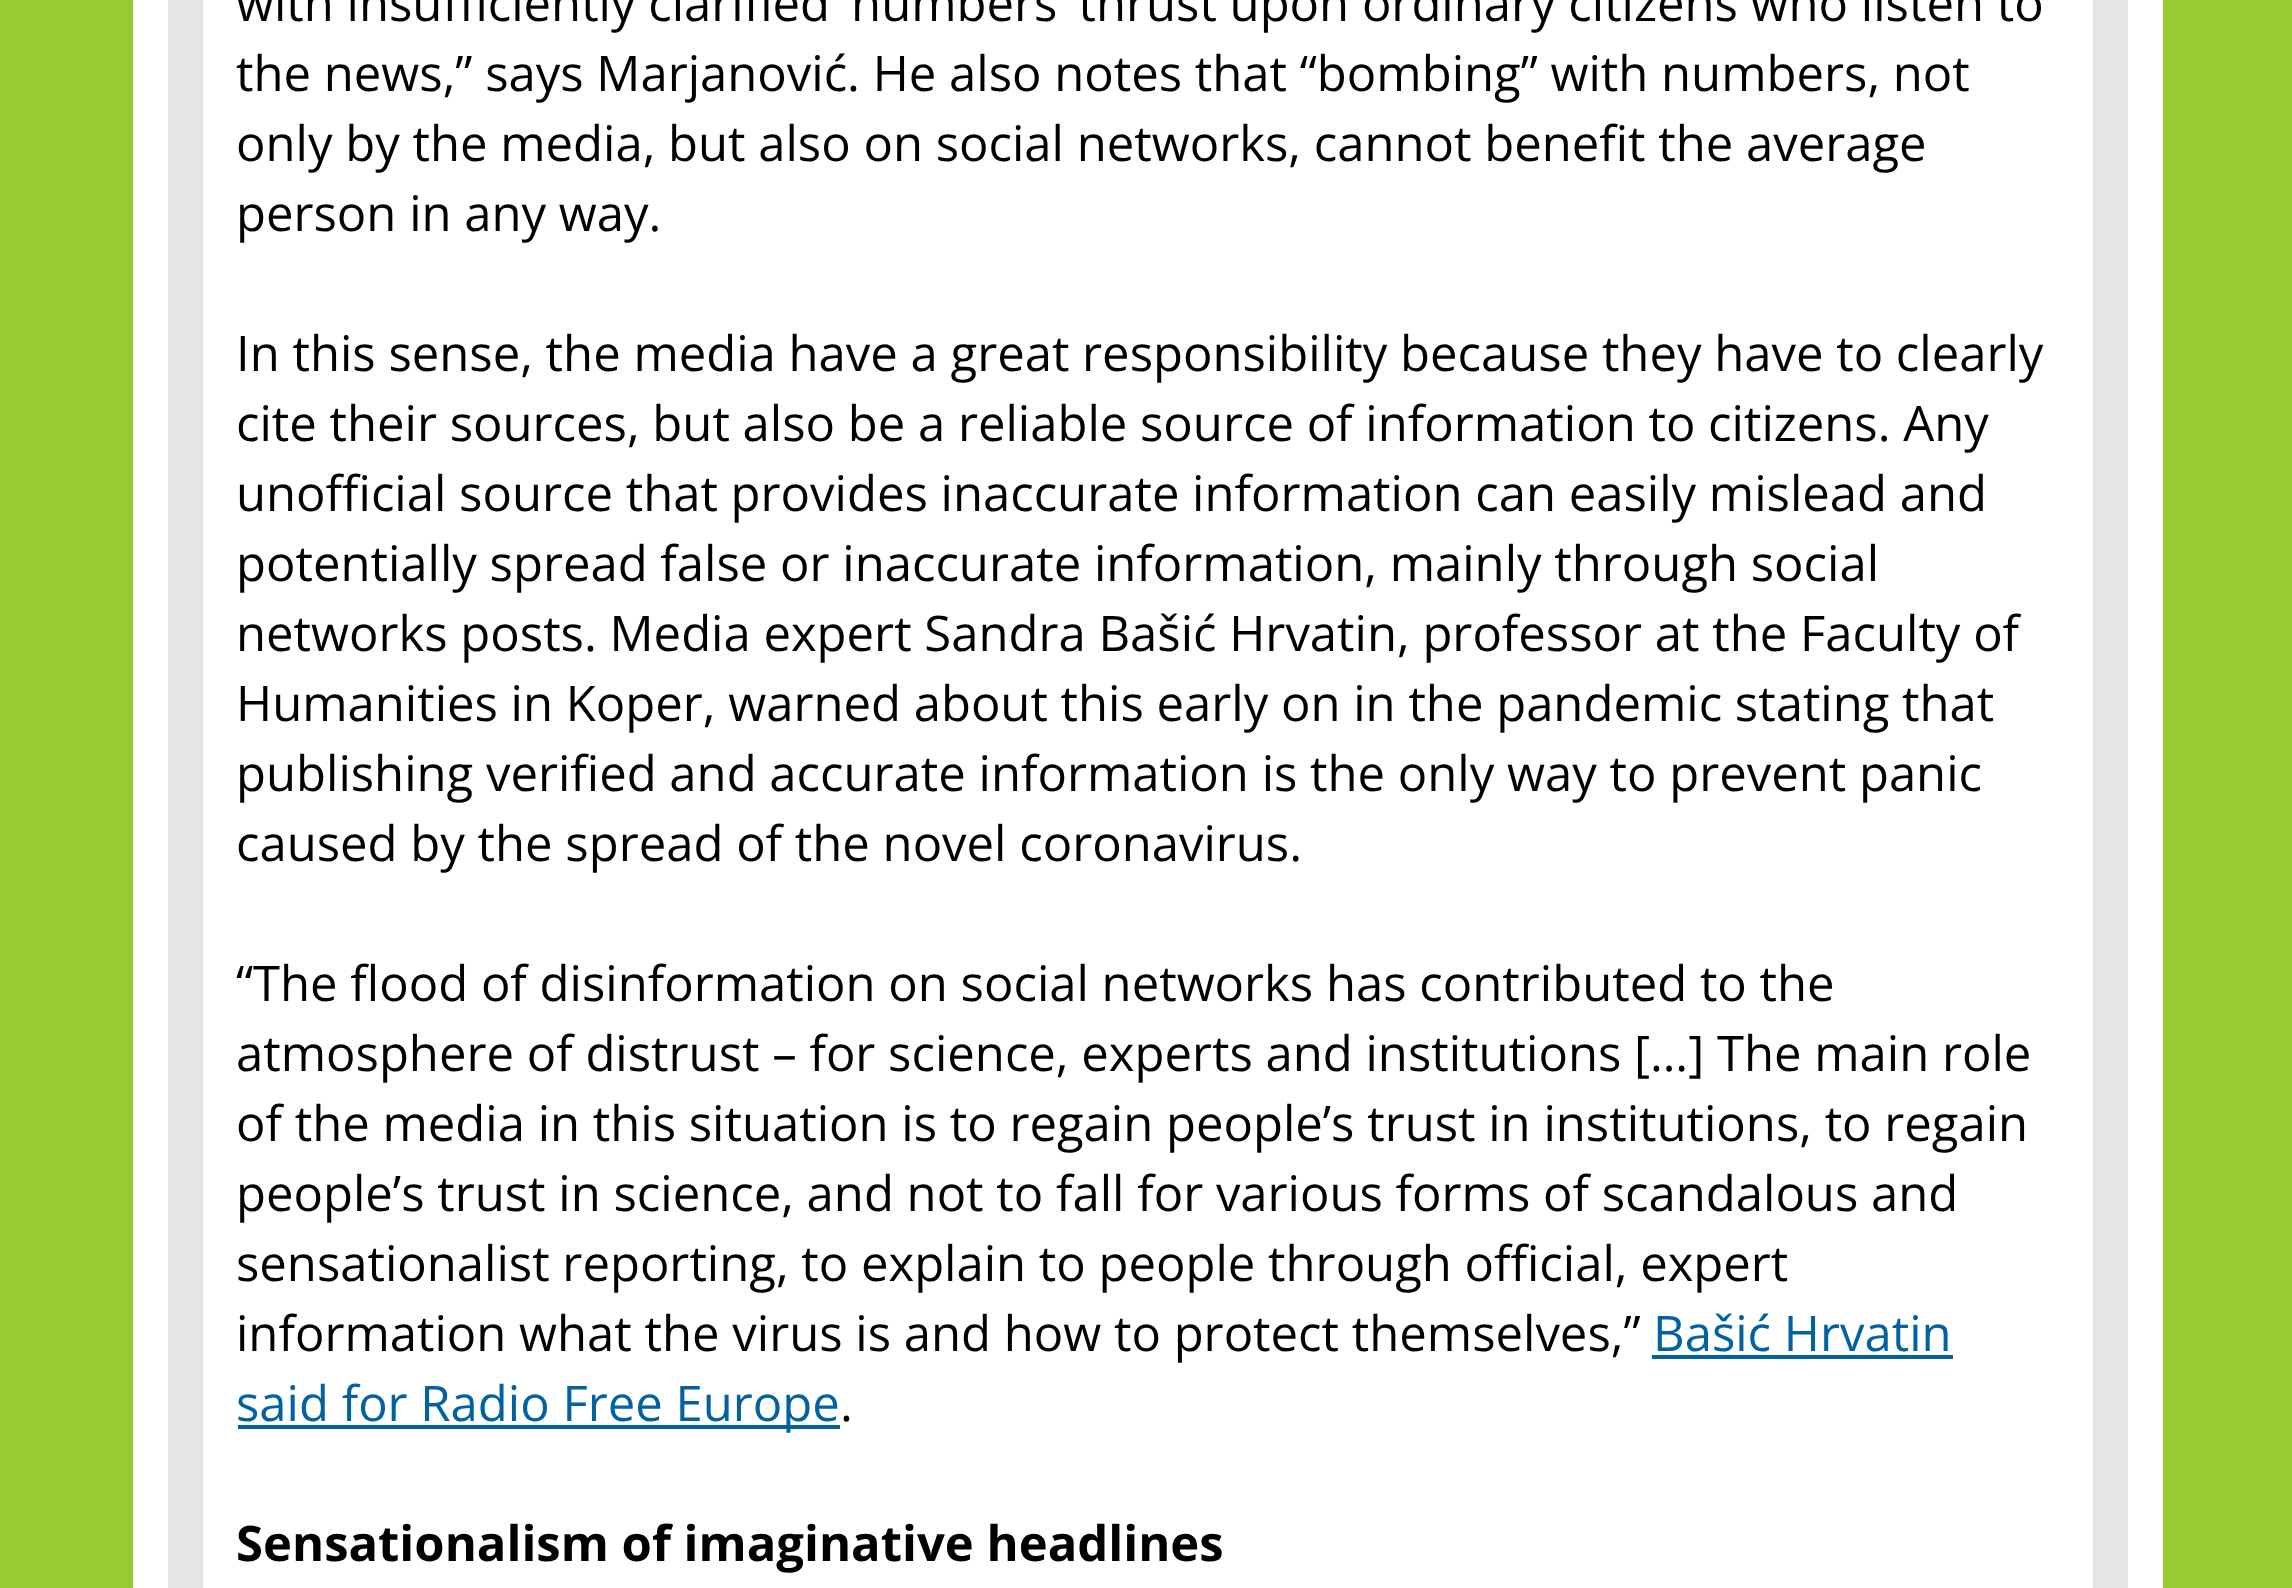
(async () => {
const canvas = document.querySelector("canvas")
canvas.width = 2292
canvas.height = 1588
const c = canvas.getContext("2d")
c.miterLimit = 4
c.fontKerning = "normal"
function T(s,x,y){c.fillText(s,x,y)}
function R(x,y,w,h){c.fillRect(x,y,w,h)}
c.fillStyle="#9c3"
R(0,0,2292,1588)
c.fillStyle="#fff"
R(133,0,2030,1588)
c.strokeStyle="#e5e5e5"
c.lineWidth=35
c.strokeRect(185.5,-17.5,1925,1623)
c.font="49px Open Sans"
c.fillStyle="#000"
T("with insufficiently clarified ‘numbers’ thrust upon ordinary citizens who listen to",236,21)
T("the news,” says Marjanović. He also notes that “bombing” with numbers, not",236,91)
T("only by the media, but also on social networks, cannot benefit the average",236,161)
T("person in any way.",236,231)
T("In this sense, the media have a great responsibility because they have to clearly",236,371)
T("cite their sources, but also be a reliable source of information to citizens. Any",236,441)
T("unofficial source that provides inaccurate information can easily mislead and",236,511)
T("potentially spread false or inaccurate information, mainly through social",236,581)
T("networks posts. Media expert Sandra Bašić Hrvatin, professor at the Faculty of",236,651)
T("Humanities in Koper, warned about this early on in the pandemic stating that",236,721)
T("publishing verified and accurate information is the only way to prevent panic",236,791)
T("caused by the spread of the novel coronavirus.",236,861)
T("“The flood of disinformation on social networks has contributed to the",236,1001)
T("atmosphere of distrust – for science, experts and institutions […] The main role",236,1071)
T("of the media in this situation is to regain people’s trust in institutions, to regain",236,1141)
T("people’s trust in science, and not to fall for various forms of scandalous and",236,1211)
T("sensationalist reporting, to explain to people through official, expert",236,1281)
T("information what the virus is and how to protect themselves,”",236,1351)
c.fillStyle="#0062a0"
T("Bašić Hrvatin",1653,1351)
R(1652,1355,301,4)
R(238,1425,602,4)
T("said for Radio Free Europe",236,1421)
c.fillStyle="#000"
T(".",840,1421)
c.font="bold 49px Open Sans"
T("Sensationalism of imaginative headlines",236,1561)
})()
